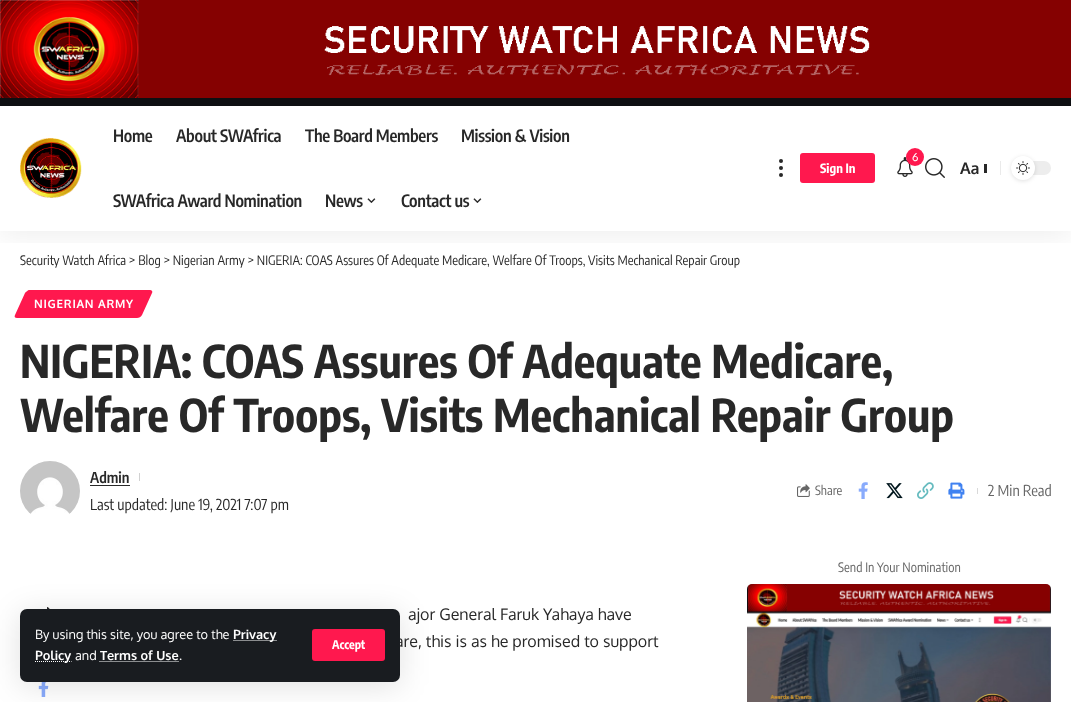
(async () => {
const canvas = document.querySelector("canvas")
canvas.width = 1071
canvas.height = 702
const c = canvas.getContext("2d")
c.miterLimit = 4
c.fontKerning = "normal"
function T(s,x,y){c.fillText(s,x,y)}
function R(x,y,w,h){c.fillRect(x,y,w,h)}
function Q(x,y,w,h,r){c.beginPath();c.roundRect(x,y,w,h,r);c.fill()}
async function I(src,x,y,w,h){const img=new Image();img.src=src;await img.decode();c.drawImage(img,x,y,w,h)}
let path
c.fillStyle="#fff"
R(0,0,1071,702)
c.fillStyle="#0e0f12"
R(0,98,1071,8)
await I("1.png",0,0,1071,98)
c.save()
c.beginPath()
c.rect(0,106,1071,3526)
c.clip()
c.beginPath()
c.rect(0,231,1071,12)
c.clip()
c.fillStyle="#00000012"
c.filter="blur(15px)"
c.beginPath()
c.rect(0,110,1071,125)
c.fill()
c.filter="none"
c.restore()
await I("2.png",20,138,62,60)
c.letterSpacing="-0.3px"
c.font="600 17px Encode Sans Condensed"
c.fillStyle="#282828"
T("Home",113,142)
T("About SWAfrica",176,142)
T("The Board Members",305,142)
T("Mission & Vision",461,142)
T("SWAfrica Award Nomination",113,207)
T("News",325,207)
await I("3.png",367,198,9,5)
T("Contact us",401,207)
await I("3.png",473,198,9,5)
c.beginPath()
c.arc(781,161,2,0,7)
c.fill()
c.beginPath()
c.arc(781,168,2,0,7)
c.fill()
c.beginPath()
c.arc(781,175,2,0,7)
c.fill()
c.fillStyle="#ff184e"
Q(800,153,75,30,3)
c.letterSpacing="0px"
c.font="bold 12.75px Encode Sans Condensed"
c.fillStyle="#fff"
T("Sign In",820,173)
await I("4.png",897,157,16,20)
c.fillStyle="#ff184e"
c.beginPath()
c.arc(915,157,9,0,7)
c.fill()
c.font="11px Oxygen"
c.fillStyle="#fff"
T("6",912,161)
await I("5.png",925,158,20,20)
c.font="bold 16px Oxygen"
c.fillStyle="#282828"
T("Aa",960,174)
R(984,164,3,9)
c.fillStyle="#eaeaea"
R(1000,161,1,14)
c.fillStyle="#ededed"
Q(1011,161,40,14,7)
c.fillStyle="#0000001f"
c.filter="blur(2px)"
c.beginPath()
c.roundRect(1011,157,24,24,12)
c.fill()
c.filter="none"
c.fillStyle="#fff"
c.beginPath()
c.arc(1023,168,12,0,7)
c.fill()
await I("6.png",1016,161,14,14)
await I("14.png",47,607,3,2)
await I("15.png",38,682,11,15)
c.fillStyle="#0000001f"
c.filter="blur(15px)"
c.beginPath()
c.roundRect(20,613,380,73,7)
c.fill()
c.filter="none"
c.font="16px Oxygen"
c.fillStyle="#282828"
T("are, this is as he promised to support",395,647)
c.fillStyle="#191c20"
Q(20,609,380,73,7)
c.font="12.75px Oxygen"
c.fillStyle="#fff"
T("By using this site, you agree to the",35,639)
path = new Path2D("M233.5 640.5h43.5")
c.strokeStyle="#fff"
c.setLineDash([1,1])
c.stroke(path)
c.font="bold 12.75px Oxygen"
T("Privacy",233,639)
path = new Path2D("M35 661.5h36.5")
c.stroke(path)
T("Policy",35,660)
c.font="12.75px Oxygen"
T("and",75,660)
c.font="bold 12.75px Oxygen"
T("Terms of Use",100,660)
path = new Path2D("M99.5 661.5h79")
c.stroke(path)
c.font="12.75px Oxygen"
T(".",179,660)
c.fillStyle="#ff184e"
Q(312,629,73,32,3)
c.font="bold 12px Encode Sans Condensed"
c.fillStyle="#fff"
T("Accept",332,649)
c.font="13px Encode Sans Condensed"
c.fillStyle="#282828"
T("Security Watch Africa > Blog > Nigerian Army > NIGERIA: COAS Assures Of Adequate Medicare, Welfare Of Troops, Visits Mechanical Repair Group",20,265)
c.fillStyle="#ff184e"
path = new Path2D("M29 290h121c2 0 3 2 2 3l-10 22c-1 2-3 3-5 3h-120c-2 0-3-1-2-3l10-22c1-1 3-3 4-3z")
c.fill(path)
c.letterSpacing="0.75px"
c.font="bold 11.5px Oxygen"
c.fillStyle="#fff"
T("NIGERIAN ARMY",34,308)
c.letterSpacing="0px"
c.font="bold 45px Encode Sans Condensed"
c.fillStyle="#282828"
T("NIGERIA: COAS Assures Of Adequate Medicare,",20,378)
T("Welfare Of Troops, Visits Mechanical Repair Group",20,432)
await I("7.png",20,461,60,53)
c.font="600 15px Encode Sans Condensed"
T("Admin",90,483)
R(90,485,40,1)
c.fillStyle="#d1d1d1"
R(139,473,1,8)
c.font="15px Encode Sans Condensed"
c.fillStyle="#282828"
T("Last updated: June 19, 2021 7:07 pm",90,510)
await I("8.png",797,484,13,13)
c.font="12.75px Encode Sans Condensed"
c.fillStyle="#666"
T("Share",815,495)
await I("9.png",858,482,10,17)
await I("10.png",886,483,17,16)
await I("11.png",917,482,17,17)
await I("12.png",948,482,17,17)
c.fillStyle="#d9d9d9"
R(977,488,1,6)
c.font="15px Encode Sans Condensed"
c.fillStyle="#666"
T("2 Min Read",988,496)
c.font="13px Encode Sans Condensed"
T("Send In Your Nomination",838,572)
await I("13.png",747,584,304,118)
c.font="16px Oxygen"
c.fillStyle="#282828"
T("ajor General Faruk Yahaya have",408,620)
})()
